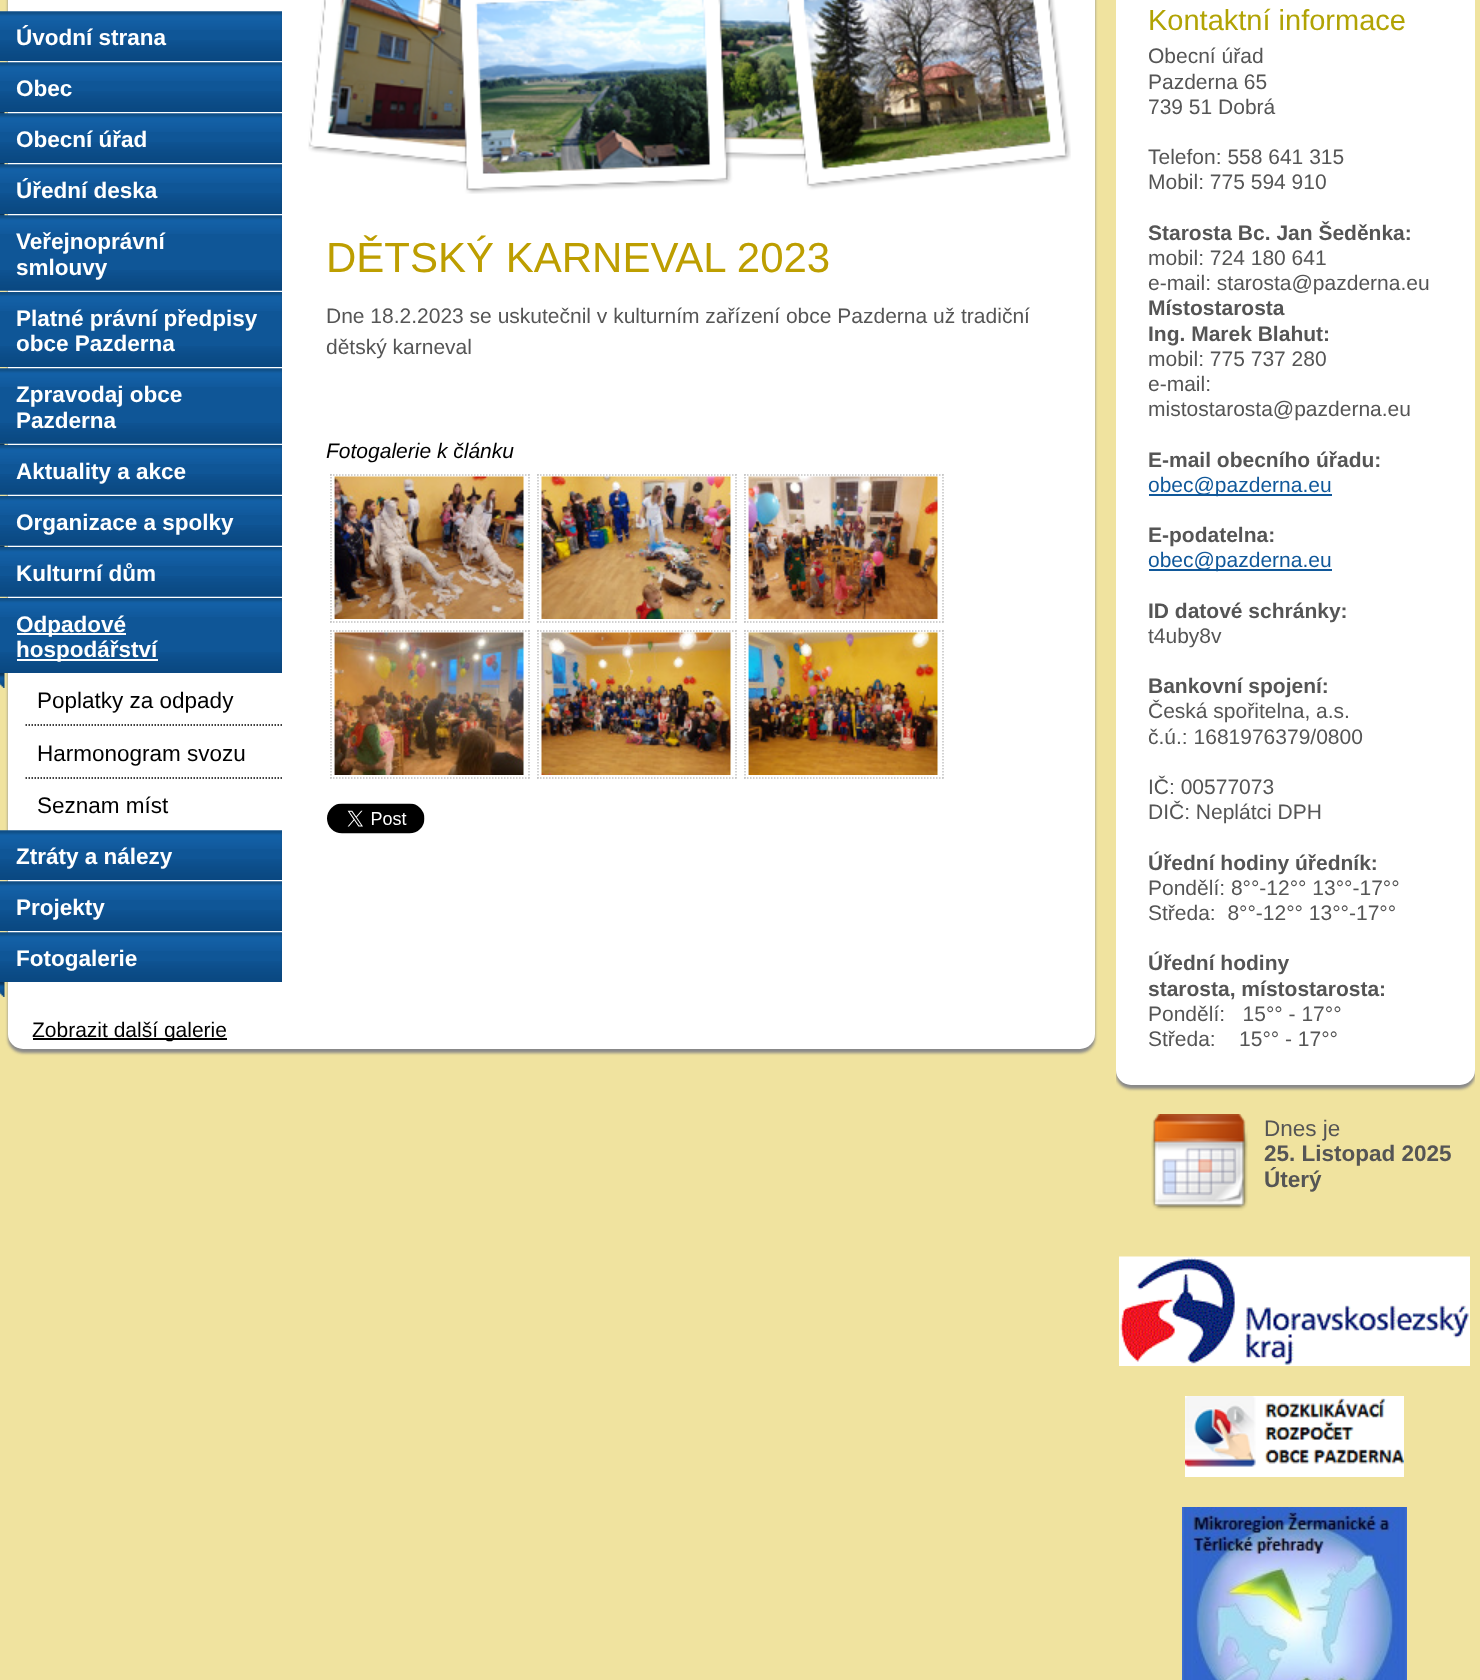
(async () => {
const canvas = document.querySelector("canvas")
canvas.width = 1480
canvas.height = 1680
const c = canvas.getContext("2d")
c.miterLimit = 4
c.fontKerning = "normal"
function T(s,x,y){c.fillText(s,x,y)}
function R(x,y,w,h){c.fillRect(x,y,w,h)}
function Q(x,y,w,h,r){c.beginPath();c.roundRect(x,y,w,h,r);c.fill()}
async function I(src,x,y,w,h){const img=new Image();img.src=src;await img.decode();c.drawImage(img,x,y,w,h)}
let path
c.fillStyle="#f0e39f"
R(0,0,1480,1680)
c.fillStyle="#888"
c.filter="blur(1.5px)"
c.beginPath()
c.roundRect(8,-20,1087,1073,15)
c.fill()
c.filter="none"
c.fillStyle="#fff"
Q(8,-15,1087,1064,15)
await I("1.png",0,11,282,29)
await I("2.png",0,11,282,19)
await I("3.png",0,40,282,21)
c.font="bold 22.5px Liberation Sans"
T("Úvodní strana",16,45)
await I("1.png",0,62,282,29)
await I("2.png",0,62,282,19)
await I("3.png",0,91,282,21)
T("Obec",16,96)
await I("4.png",0,112,5,2)
await I("5.png",0,113,282,29)
await I("6.png",0,113,282,19)
await I("3.png",0,142,282,21)
T("Obecní úřad",16,147)
await I("4.png",0,163,5,2)
await I("5.png",0,164,282,29)
await I("6.png",0,164,282,19)
await I("3.png",0,193,282,21)
T("Úřední deska",16,198)
await I("4.png",0,214,5,2)
await I("7.png",0,215,282,76)
await I("6.png",0,215,282,19)
T("Veřejnoprávní",16,249)
await I("8.png",0,270,282,21)
T("smlouvy",16,275)
await I("9.png",0,311,282,35)
await I("10.png",0,292,282,19)
T("Platné právní předpisy",16,326)
await I("3.png",0,346,282,21)
T("obce Pazderna",16,351)
await I("11.png",0,368,282,76)
await I("2.png",0,368,282,19)
T("Zpravodaj obce",16,402)
await I("8.png",0,423,282,21)
T("Pazderna",16,428)
await I("12.png",0,443,5,2)
await I("13.png",0,464,282,31)
await I("10.png",0,445,282,19)
await I("8.png",0,474,282,21)
T("Aktuality a akce",16,479)
await I("13.png",0,515,282,31)
await I("10.png",0,496,282,19)
await I("8.png",0,525,282,21)
T("Organizace a spolky",16,530)
await I("12.png",0,545,5,2)
await I("13.png",0,566,282,31)
await I("10.png",0,547,282,19)
await I("8.png",0,576,282,21)
T("Kulturní dům",16,581)
await I("9.png",0,617,282,35)
await I("10.png",0,598,282,19)
R(17,633,109,2)
T("Odpadové",16,632)
await I("3.png",0,652,282,21)
R(17,659,141,2)
T("hospodářství",16,657)
await I("14.png",0,673,5,15)
c.font="22.5px Liberation Sans"
c.fillStyle="#000"
T("Poplatky za odpady",37,708)
path = new Path2D("M25.5 725h256.5")
c.strokeStyle="#000"
c.lineWidth=1.5
c.setLineDash([1.5,1.5])
c.stroke(path)
T("Harmonogram svozu",37,761)
path = new Path2D("M25.5 778h256.5")
c.stroke(path)
T("Seznam míst",37,813)
await I("1.png",0,830,282,29)
await I("2.png",0,830,282,19)
await I("3.png",0,859,282,21)
c.font="bold 22.5px Liberation Sans"
c.fillStyle="#fff"
T("Ztráty a nálezy",16,864)
await I("1.png",0,881,282,29)
await I("2.png",0,881,282,19)
await I("3.png",0,910,282,21)
T("Projekty",16,915)
await I("1.png",0,932,282,29)
await I("2.png",0,932,282,19)
await I("3.png",0,961,282,21)
T("Fotogalerie",16,966)
await I("14.png",0,982,5,15)
c.fillStyle="#000"
R(33,1038,194,2)
c.font="21px Liberation Sans"
T("Zobrazit další galerie",32,1037)
await I("15.png",308,0,763,194)
c.font="42px Liberation Sans"
c.fillStyle="#bd9e00"
T("DĚTSKÝ KARNEVAL 2023",326,272)
c.font="21px Liberation Sans"
c.fillStyle="#555"
T("Dne 18.2.2023 se uskutečnil v kulturním zařízení obce Pazderna už tradiční",326,323)
T("dětský karneval",326,354)
c.font="italic 21px Liberation Sans"
c.fillStyle="#000"
T("Fotogalerie k článku",326,458)
path = new Path2D("M330 475h199.5")
c.strokeStyle="#c2c2c2"
c.stroke(path)
path = new Path2D("M529 474v148.5")
c.stroke(path)
path = new Path2D("M330 622h199.5")
c.stroke(path)
path = new Path2D("M331 474v148.5")
c.stroke(path)
await I("16.png",333,476,192,143)
path = new Path2D("M537 475h199.5")
c.stroke(path)
path = new Path2D("M736 474v148.5")
c.stroke(path)
path = new Path2D("M537 622h199.5")
c.stroke(path)
path = new Path2D("M538 474v148.5")
c.stroke(path)
await I("17.png",540,476,192,143)
path = new Path2D("M744 475h199.5")
c.stroke(path)
path = new Path2D("M943 474v148.5")
c.stroke(path)
path = new Path2D("M744 622h199.5")
c.stroke(path)
path = new Path2D("M745 474v148.5")
c.stroke(path)
await I("18.png",747,476,192,143)
path = new Path2D("M330 631h199.5")
c.stroke(path)
path = new Path2D("M529 630v148.5")
c.stroke(path)
path = new Path2D("M330 778h199.5")
c.stroke(path)
path = new Path2D("M331 630v148.5")
c.stroke(path)
await I("19.png",333,632,192,143)
path = new Path2D("M537 631h199.5")
c.stroke(path)
path = new Path2D("M736 630v148.5")
c.stroke(path)
path = new Path2D("M537 778h199.5")
c.stroke(path)
path = new Path2D("M538 630v148.5")
c.stroke(path)
await I("20.png",540,632,192,143)
path = new Path2D("M744 631h199.5")
c.stroke(path)
path = new Path2D("M943 630v148.5")
c.stroke(path)
path = new Path2D("M744 778h199.5")
c.stroke(path)
path = new Path2D("M745 630v148.5")
c.stroke(path)
await I("21.png",747,632,192,143)
await I("22.png",327,803,98,31)
c.save()
c.beginPath()
c.rect(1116,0,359,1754)
c.clip()
c.fillStyle="#888"
c.filter="blur(1.5px)"
c.beginPath()
c.roundRect(1116,-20,359,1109,15)
c.fill()
c.filter="none"
c.restore()
c.fillStyle="#fff"
Q(1116,-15,359,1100,15)
c.font="29px Liberation Sans"
c.fillStyle="#b1a304"
T("Kontaktní informace",1148,30)
c.font="21px Liberation Sans"
c.fillStyle="#555"
T("Obecní úřad",1148,63)
T("Pazderna 65",1148,89)
T("739 51 Dobrá",1148,114)
T("Telefon: 558 641 315",1148,164)
T("Mobil: 775 594 910",1148,189)
c.font="bold 21px Liberation Sans"
T("Starosta Bc. Jan Šeděnka:",1148,240)
c.font="21px Liberation Sans"
T("mobil: 724 180 641",1148,265)
T("e-mail: starosta@pazderna.eu",1148,290)
c.font="bold 21px Liberation Sans"
T("Místostarosta",1148,315)
T("Ing. Marek Blahut:",1148,341)
c.font="21px Liberation Sans"
T("mobil: 775 737 280",1148,366)
T("e-mail:",1148,391)
T("mistostarosta@pazderna.eu",1148,416)
c.font="bold 21px Liberation Sans"
T("E-mail obecního úřadu:",1148,467)
c.fillStyle="#10589a"
R(1149,494,183,2)
c.font="21px Liberation Sans"
T("obec@pazderna.eu",1148,492)
c.font="bold 21px Liberation Sans"
c.fillStyle="#555"
T("E-podatelna:",1148,542)
c.fillStyle="#10589a"
R(1149,569,183,2)
c.font="21px Liberation Sans"
T("obec@pazderna.eu",1148,567)
c.font="bold 21px Liberation Sans"
c.fillStyle="#555"
T("ID datové schránky:",1148,618)
c.font="21px Liberation Sans"
T("t4uby8v",1148,643)
c.font="bold 21px Liberation Sans"
T("Bankovní spojení:",1148,693)
c.font="21px Liberation Sans"
T("Česká spořitelna, a.s.",1148,718)
T("č.ú.: 1681976379/0800",1148,744)
T("IČ: 00577073",1148,794)
T("DIČ: Neplátci DPH",1148,819)
c.font="bold 21px Liberation Sans"
T("Úřední hodiny úředník:",1148,870)
c.font="21px Liberation Sans"
T("Pondělí: 8°°-12°° 13°°-17°°",1148,895)
T("Středa:  8°°-12°° 13°°-17°°",1148,920)
c.font="bold 21px Liberation Sans"
T("Úřední hodiny",1148,970)
T("starosta, místostarosta:",1148,996)
c.font="21px Liberation Sans"
T("Pondělí:   15°° - 17°°",1148,1021)
T("Středa:    15°° - 17°°",1148,1046)
await I("23.png",1151,1114,97,97)
c.font="22.5px Liberation Sans"
T("Dnes je",1264,1136)
c.font="bold 22.5px Liberation Sans"
T("25. Listopad 2025",1264,1161)
T("Úterý",1264,1187)
await I("24.png",1119,1256,351,110)
await I("25.png",1185,1396,219,81)
await I("26.png",1182,1507,225,173)
})()
